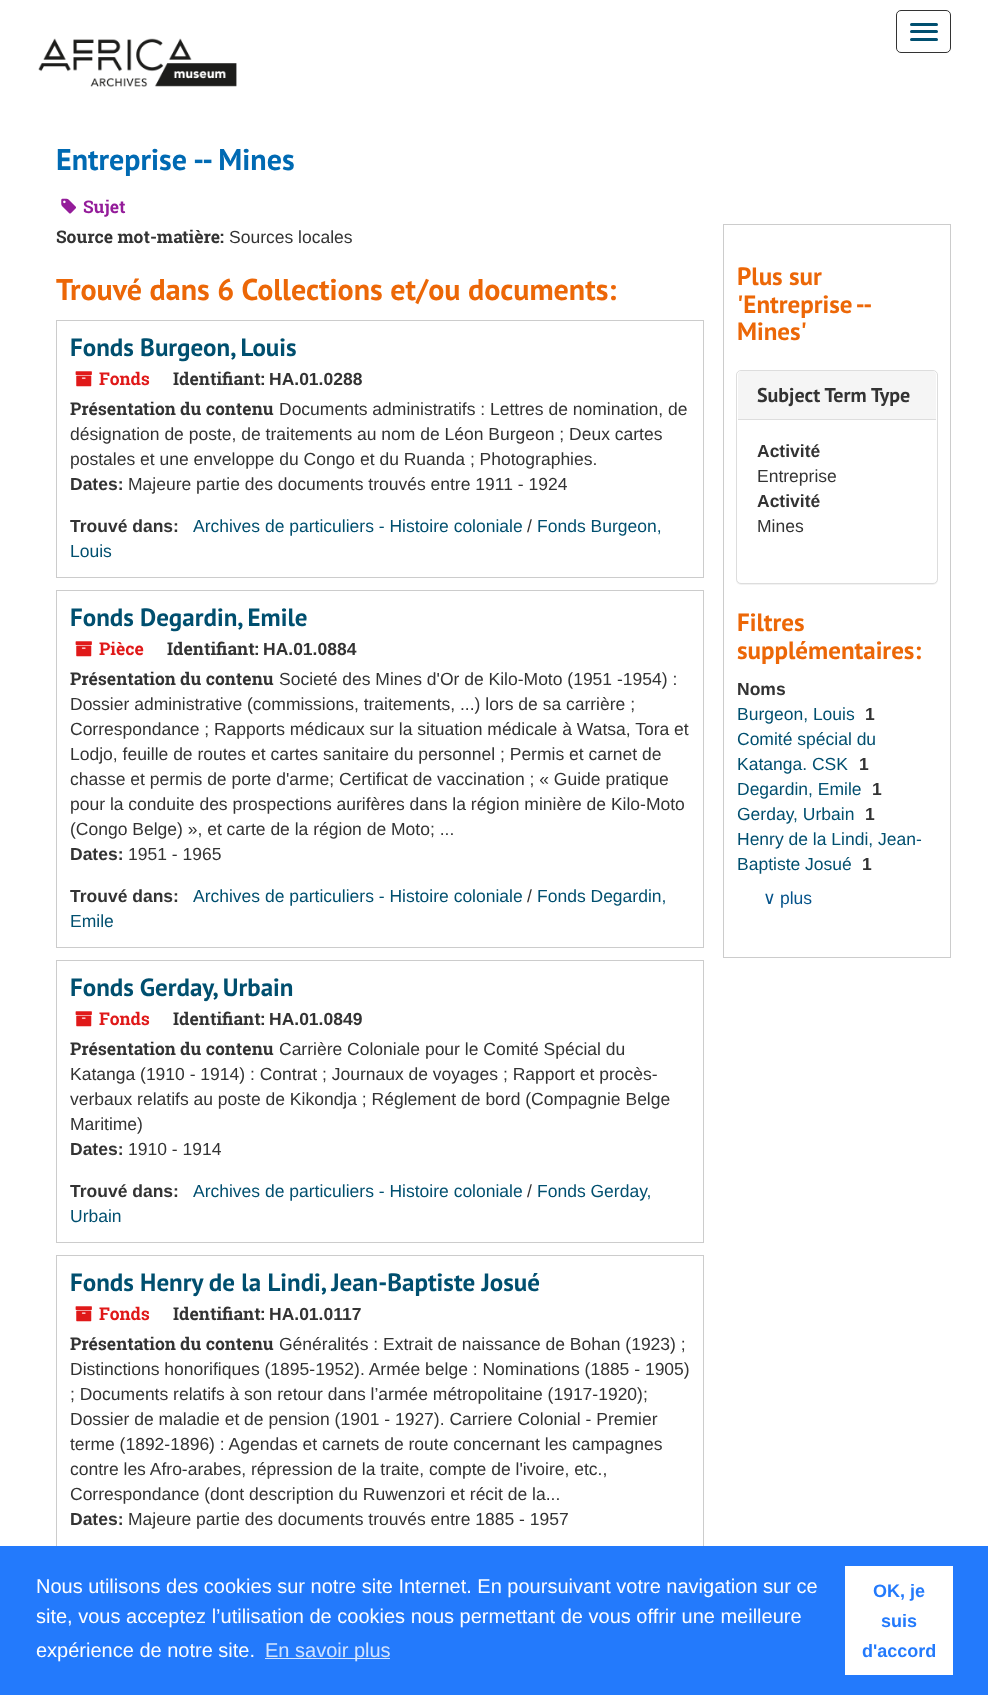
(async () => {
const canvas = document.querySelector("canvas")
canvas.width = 988
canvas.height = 1695
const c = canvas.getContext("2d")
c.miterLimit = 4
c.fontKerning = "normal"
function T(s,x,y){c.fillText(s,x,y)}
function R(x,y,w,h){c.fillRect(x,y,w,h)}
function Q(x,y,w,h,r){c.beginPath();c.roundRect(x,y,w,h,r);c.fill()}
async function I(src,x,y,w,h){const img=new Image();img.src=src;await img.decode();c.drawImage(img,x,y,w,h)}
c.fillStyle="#fff"
R(0,0,988,1695)
c.beginPath()
c.roundRect(896.5,10.5,54,42,4.5)
c.strokeStyle="#333"
c.stroke()
c.fillStyle="#004f6f"
Q(910,23,28,3,1.5)
Q(910,30,28,3,1.5)
Q(910,38,28,3,1.5)
await I("1.png",38,38,199,49)
c.font="bold 30px PT Sans"
c.fillStyle="#006ab3"
T("Entreprise -- Mines",56,170)
await I("2.png",61,198,15,16)
c.font="bold 17.5px Roboto Slab"
c.fillStyle="#941c9a"
T("Sujet",83,213)
c.fillStyle="#333"
T("Source mot-matière:",56,243)
c.font="17.5px Liberation Sans"
T("Sources locales",229,243)
c.font="bold 30px PT Sans"
c.fillStyle="#ec6707"
T("Trouvé dans 6 Collections et/ou documents:",56,300)
c.strokeStyle="#ccc"
c.strokeRect(56.5,320.5,647,257)
c.font="bold 25px PT Sans"
c.fillStyle="#004f6f"
T("Fonds Burgeon, Louis",70,356)
await I("3.png",75,371,17,16)
c.font="bold 17.5px Roboto Slab"
c.fillStyle="#e01919"
T("Fonds",99,385)
c.fillStyle="#333"
T("Identifiant:",173,385)
c.font="bold 17.5px Liberation Sans"
T("HA.01.0288",269,385)
c.font="bold 17.5px Roboto Slab"
T("Présentation du contenu",70,415)
c.font="17.5px Liberation Sans"
T("Documents administratifs : Lettres de nomination, de",279,415)
T("désignation de poste, de traitements au nom de Léon Burgeon ; Deux cartes",70,440)
T("postales et une enveloppe du Congo et du Ruanda ; Photographies.",70,465)
c.font="bold 17.5px Liberation Sans"
T("Dates:",70,490)
c.font="17.5px Liberation Sans"
T("Majeure partie des documents trouvés entre 1911 - 1924",128,490)
c.font="bold 17.5px Liberation Sans"
T("Trouvé dans:",70,532)
c.font="17.5px Liberation Sans"
c.fillStyle="#004f6f"
T("Archives de particuliers - Histoire coloniale",193,532)
c.fillStyle="#333"
T("/",527,532)
c.fillStyle="#004f6f"
T("Fonds Burgeon,",537,532)
T("Louis",70,557)
c.strokeRect(56.5,590.5,647,357)
c.font="bold 25px PT Sans"
T("Fonds Degardin, Emile",70,626)
await I("3.png",75,641,17,16)
c.font="bold 17.5px Roboto Slab"
c.fillStyle="#e01919"
T("Pièce",99,655)
c.fillStyle="#333"
T("Identifiant:",167,655)
c.font="bold 17.5px Liberation Sans"
T("HA.01.0884",263,655)
c.font="bold 17.5px Roboto Slab"
T("Présentation du contenu",70,685)
c.font="17.5px Liberation Sans"
T("Societé des Mines d'Or de Kilo-Moto (1951 -1954) :",279,685)
T("Dossier administrative (commissions, traitements, ...) lors de sa carrière ;",70,710)
T("Correspondance ; Rapports médicaux sur la situation médicale à Watsa, Tora et",70,735)
T("Lodjo, feuille de routes et cartes sanitaire du personnel ; Permis et carnet de",70,760)
T("chasse et permis de porte d'arme; Certificat de vaccination ; « Guide pratique",70,785)
T("pour la conduite des prospections aurifères dans la région minière de Kilo-Moto",70,810)
T("(Congo Belge) », et carte de la région de Moto; ...",70,835)
c.font="bold 17.5px Liberation Sans"
T("Dates:",70,860)
c.font="17.5px Liberation Sans"
T("1951 - 1965",128,860)
c.font="bold 17.5px Liberation Sans"
T("Trouvé dans:",70,902)
c.font="17.5px Liberation Sans"
c.fillStyle="#004f6f"
T("Archives de particuliers - Histoire coloniale",193,902)
c.fillStyle="#333"
T("/",527,902)
c.fillStyle="#004f6f"
T("Fonds Degardin,",537,902)
T("Emile",70,927)
c.strokeRect(56.5,960.5,647,282)
c.font="bold 25px PT Sans"
T("Fonds Gerday, Urbain",70,996)
await I("3.png",75,1011,17,16)
c.font="bold 17.5px Roboto Slab"
c.fillStyle="#e01919"
T("Fonds",99,1025)
c.fillStyle="#333"
T("Identifiant:",173,1025)
c.font="bold 17.5px Liberation Sans"
T("HA.01.0849",269,1025)
c.font="bold 17.5px Roboto Slab"
T("Présentation du contenu",70,1055)
c.font="17.5px Liberation Sans"
T("Carrière Coloniale pour le Comité Spécial du",279,1055)
T("Katanga (1910 - 1914) : Contrat ; Journaux de voyages ; Rapport et procès-",70,1080)
T("verbaux relatifs au poste de Kikondja ; Réglement de bord (Compagnie Belge",70,1105)
T("Maritime)",70,1130)
c.font="bold 17.5px Liberation Sans"
T("Dates:",70,1155)
c.font="17.5px Liberation Sans"
T("1910 - 1914",128,1155)
c.font="bold 17.5px Liberation Sans"
T("Trouvé dans:",70,1197)
c.font="17.5px Liberation Sans"
c.fillStyle="#004f6f"
T("Archives de particuliers - Histoire coloniale",193,1197)
c.fillStyle="#333"
T("/",527,1197)
c.fillStyle="#004f6f"
T("Fonds Gerday,",537,1197)
T("Urbain",70,1222)
c.strokeRect(56.5,1255.5,647,357)
c.font="bold 25px PT Sans"
T("Fonds Henry de la Lindi, Jean-Baptiste Josué",70,1291)
await I("3.png",75,1306,17,16)
c.font="bold 17.5px Roboto Slab"
c.fillStyle="#e01919"
T("Fonds",99,1320)
c.fillStyle="#333"
T("Identifiant:",173,1320)
c.font="bold 17.5px Liberation Sans"
T("HA.01.0117",269,1320)
c.font="bold 17.5px Roboto Slab"
T("Présentation du contenu",70,1350)
c.font="17.5px Liberation Sans"
T("Généralités : Extrait de naissance de Bohan (1923) ;",279,1350)
T("Distinctions honorifiques (1895-1952). Armée belge : Nominations (1885 - 1905)",70,1375)
T("; Documents relatifs à son retour dans l’armée métropolitaine (1917-1920);",70,1400)
T("Dossier de maladie et de pension (1901 - 1927). Carriere Colonial - Premier",70,1425)
T("terme (1892-1896) : Agendas et carnets de route concernant les campagnes",70,1450)
T("contre les Afro-arabes, répression de la traite, compte de l'ivoire, etc.,",70,1475)
T("Correspondance (dont description du Ruwenzori et récit de la...",70,1500)
c.font="bold 17.5px Liberation Sans"
T("Dates:",70,1525)
c.font="17.5px Liberation Sans"
T("Majeure partie des documents trouvés entre 1885 - 1957",128,1525)
c.strokeRect(723.5,224.5,227,733)
c.font="bold 25px PT Sans"
c.fillStyle="#ec6707"
T("Plus sur",737,285)
c.wordSpacing="-2px"
T("'Entreprise --",737,313)
c.wordSpacing="0px"
T("Mines'",737,340)
c.fillStyle="#0000000d"
c.filter="blur(0.5px)"
c.beginPath()
c.roundRect(736,371,202,214,5)
c.fill()
c.filter="none"
c.fillStyle="#fff"
c.beginPath()
c.roundRect(736.5,370.5,201,213,4.5)
c.fill()
c.strokeStyle="#ddd"
c.stroke()
c.fillStyle="#f5f5f5"
c.beginPath()
c.roundRect(738,371,198,48,[4,4,0,0])
c.fill()
c.font="bold 20px PT Sans"
c.fillStyle="#333"
T("Subject Term Type",757,402)
c.fillStyle="#ddd"
R(738,419,198,1)
c.font="bold 17.5px Liberation Sans"
c.fillStyle="#333"
T("Activité",757,457)
c.font="17.5px Liberation Sans"
T("Entreprise",757,482)
c.font="bold 17.5px Liberation Sans"
T("Activité",757,507)
c.font="17.5px Liberation Sans"
T("Mines",757,532)
c.font="bold 25px PT Sans"
c.fillStyle="#ec6707"
T("Filtres",737,631)
T("supplémentaires:",737,659)
c.font="bold 17.5px Liberation Sans"
c.fillStyle="#333"
T("Noms",737,695)
c.font="17.5px Liberation Sans"
c.fillStyle="#004f6f"
T("Burgeon, Louis",737,720)
c.font="bold 17.5px Liberation Sans"
c.fillStyle="#333"
T("1",865,720)
c.font="17.5px Liberation Sans"
c.fillStyle="#004f6f"
T("Comité spécial du",737,745)
T("Katanga. CSK",737,770)
c.font="bold 17.5px Liberation Sans"
c.fillStyle="#333"
T("1",859,770)
c.font="17.5px Liberation Sans"
c.fillStyle="#004f6f"
T("Degardin, Emile",737,795)
c.font="bold 17.5px Liberation Sans"
c.fillStyle="#333"
T("1",872,795)
c.font="17.5px Liberation Sans"
c.fillStyle="#004f6f"
T("Gerday, Urbain",737,820)
c.font="bold 17.5px Liberation Sans"
c.fillStyle="#333"
T("1",865,820)
c.font="17.5px Liberation Sans"
c.fillStyle="#004f6f"
T("Henry de la Lindi, Jean-",737,845)
T("Baptiste Josué",737,870)
c.font="bold 17.5px Liberation Sans"
c.fillStyle="#333"
T("1",862,870)
c.font="17.5px DejaVu Sans"
c.fillStyle="#05538a"
T("∨",763,904)
c.font="17.5px Liberation Sans"
T("plus",780,904)
c.fillStyle="#237afc"
R(0,1546,988,149)
c.font="20px Liberation Sans"
c.fillStyle="#fff"
T("Nous utilisons des cookies sur notre site Internet. En poursuivant votre navigation sur ce",36,1593)
T("site, vous acceptez l’utilisation de cookies nous permettant de vous offrir une meilleure",36,1623)
T("expérience de notre site.",36,1657)
c.fillStyle="#d3e4fe"
R(265,1658,125,1)
T("En savoir plus",265,1657)
c.fillStyle="#fff"
R(845,1566,108,109)
c.font="bold 18px Liberation Sans"
c.fillStyle="#237afc"
T("OK, je",873,1597)
T("suis",881,1627)
T("d'accord",862,1657)
})()
